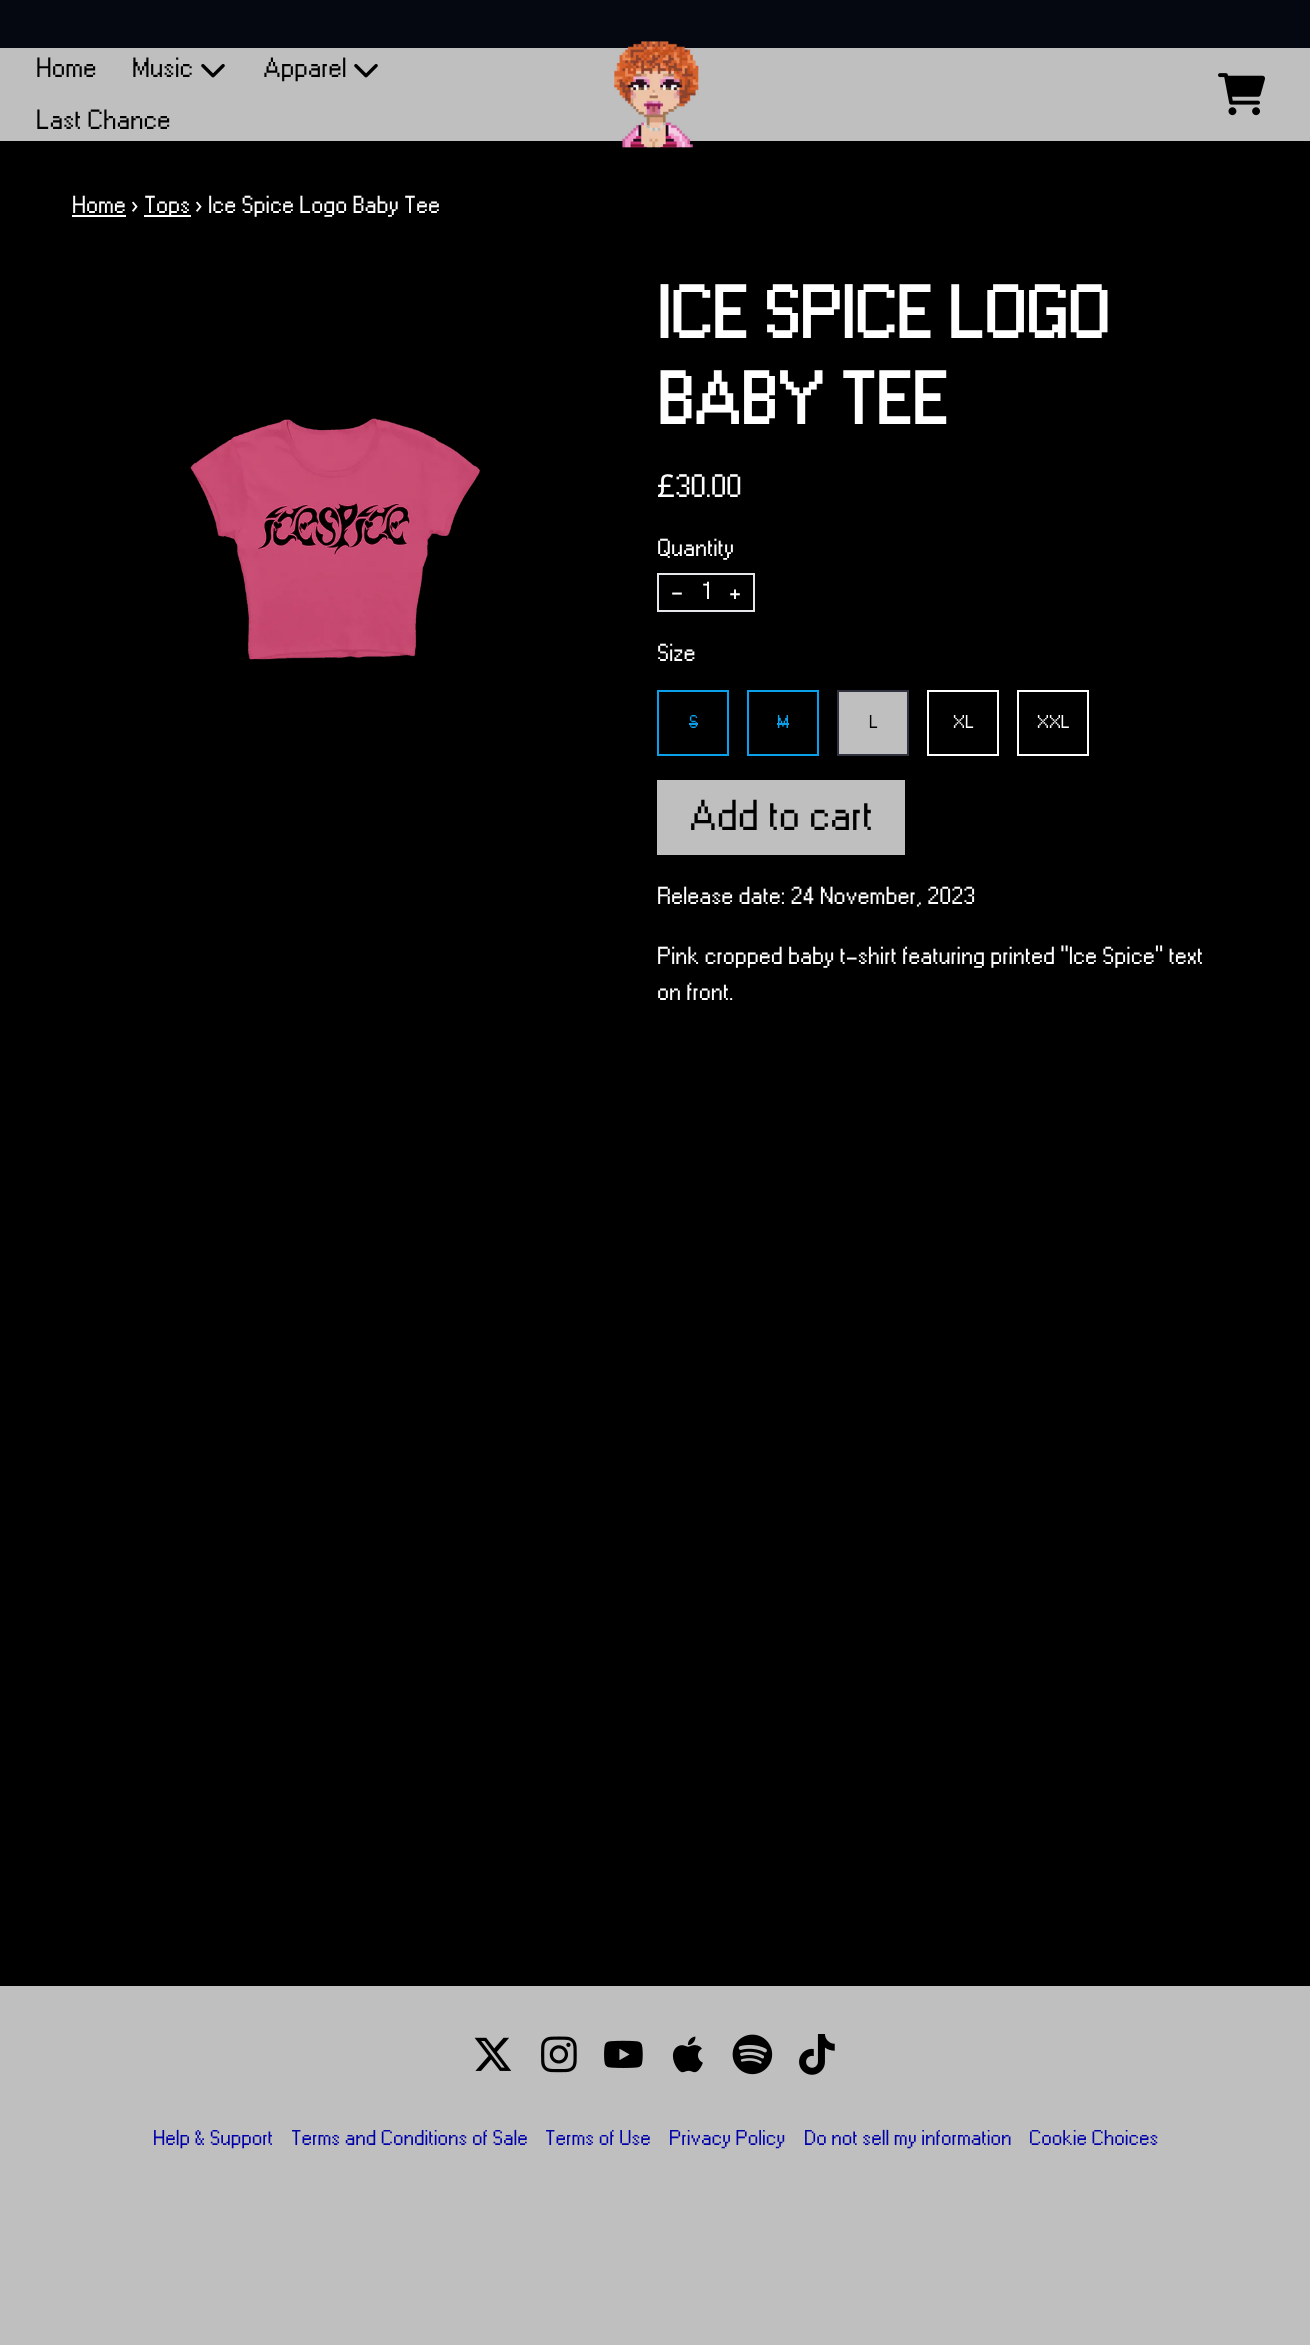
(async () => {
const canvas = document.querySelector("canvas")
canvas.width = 1310
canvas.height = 2345
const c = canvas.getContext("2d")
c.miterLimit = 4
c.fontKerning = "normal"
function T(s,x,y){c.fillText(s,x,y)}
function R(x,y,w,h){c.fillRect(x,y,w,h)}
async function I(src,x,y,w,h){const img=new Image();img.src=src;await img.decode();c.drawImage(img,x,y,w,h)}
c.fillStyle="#000"
R(0,0,1310,2345)
c.fillStyle="#050810"
R(0,0,1310,48)
c.fillStyle="#bfbfbf"
R(0,48,1310,93)
c.font="27px 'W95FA'"
c.fillStyle="#000"
T("Home",36,77)
T("Music",132,77)
await I("1.png",201,64,24,14)
T("Apparel",263,77)
await I("1.png",354,64,24,14)
T("Last Chance",36,129)
await I("2.png",614,41,85,107)
await I("3.png",1218,73,47,43)
c.font="24px 'W95FA'"
c.fillStyle="#fff"
T("Home",72,213)
R(72,215,54,2)
c.font="24px Noto Sans"
T("›",131,213)
R(144,215,47,2)
c.font="24px 'W95FA'"
T("Tops",144,213)
c.font="24px Noto Sans"
T("›",195,213)
c.font="24px 'W95FA'"
T("Ice Spice Logo Baby Tee",208,213)
await I("4.png",190,418,290,242)
c.font="bold 72px 'W95FA'"
T("ICE SPICE LOGO",657,338)
T("BABY TEE",657,424)
c.letterSpacing="-0.5px"
c.font="31.5px Noto Sans"
T("£",657,497)
c.font="31.5px 'W95FA'"
T("30.00",675,497)
c.letterSpacing="0px"
c.font="24px 'W95FA'"
T("Quantity",657,556)
c.strokeStyle="#e5e7eb"
c.lineWidth=2
c.strokeRect(658,574,96,37)
T("-",671,599)
T("1",702,599)
T("+",729,599)
T("Size",657,661)
c.strokeStyle="#0ba0ea"
c.strokeRect(658,691,70,64)
c.font="18px 'W95FA'"
c.fillStyle="#0ba0ea"
T("S",689,728)
R(689,723,9,2)
c.strokeRect(748,691,70,64)
T("M",777,728)
R(777,723,12,2)
c.fillStyle="#bfbfbf"
c.beginPath()
c.rect(838,691,70,64)
c.fill()
c.strokeStyle="#303240"
c.stroke()
c.fillStyle="#000"
T("L",869,728)
c.strokeStyle="#fff"
c.strokeRect(928,691,70,64)
c.fillStyle="#fff"
T("XL",953,728)
c.strokeRect(1018,691,70,64)
T("XXL",1037,728)
c.fillStyle="#bfbfbf"
c.beginPath()
c.rect(658,781,246,73)
c.fill()
c.strokeStyle="#bfbfbf"
c.stroke()
c.font="42px 'W95FA'"
c.fillStyle="#000"
T("Add to cart",689,830)
c.font="24px 'W95FA'"
c.fillStyle="#fff"
T("Release date: 24 November, 2023",657,904)
T("Pink cropped baby t-shirt featuring printed \"Ice Spice\" text",657,964)
T("on front.",657,1000)
c.fillStyle="#bfbfbf"
R(0,1986,1310,359)
await I("5.png",474,2037,38,34)
await I("6.png",541,2036,36,37)
await I("7.png",604,2040,39,28)
await I("8.png",672,2036,31,37)
await I("9.png",732,2034,41,41)
await I("10.png",799,2034,36,41)
c.font="21px 'W95FA'"
c.fillStyle="#0000a8"
T("Help & Support",153,2145)
T("Terms and Conditions of Sale",291,2145)
T("Terms of Use",545,2145)
T("Privacy Policy",669,2145)
T("Do not sell my information",804,2145)
T("Cookie Choices",1029,2145)
})()
